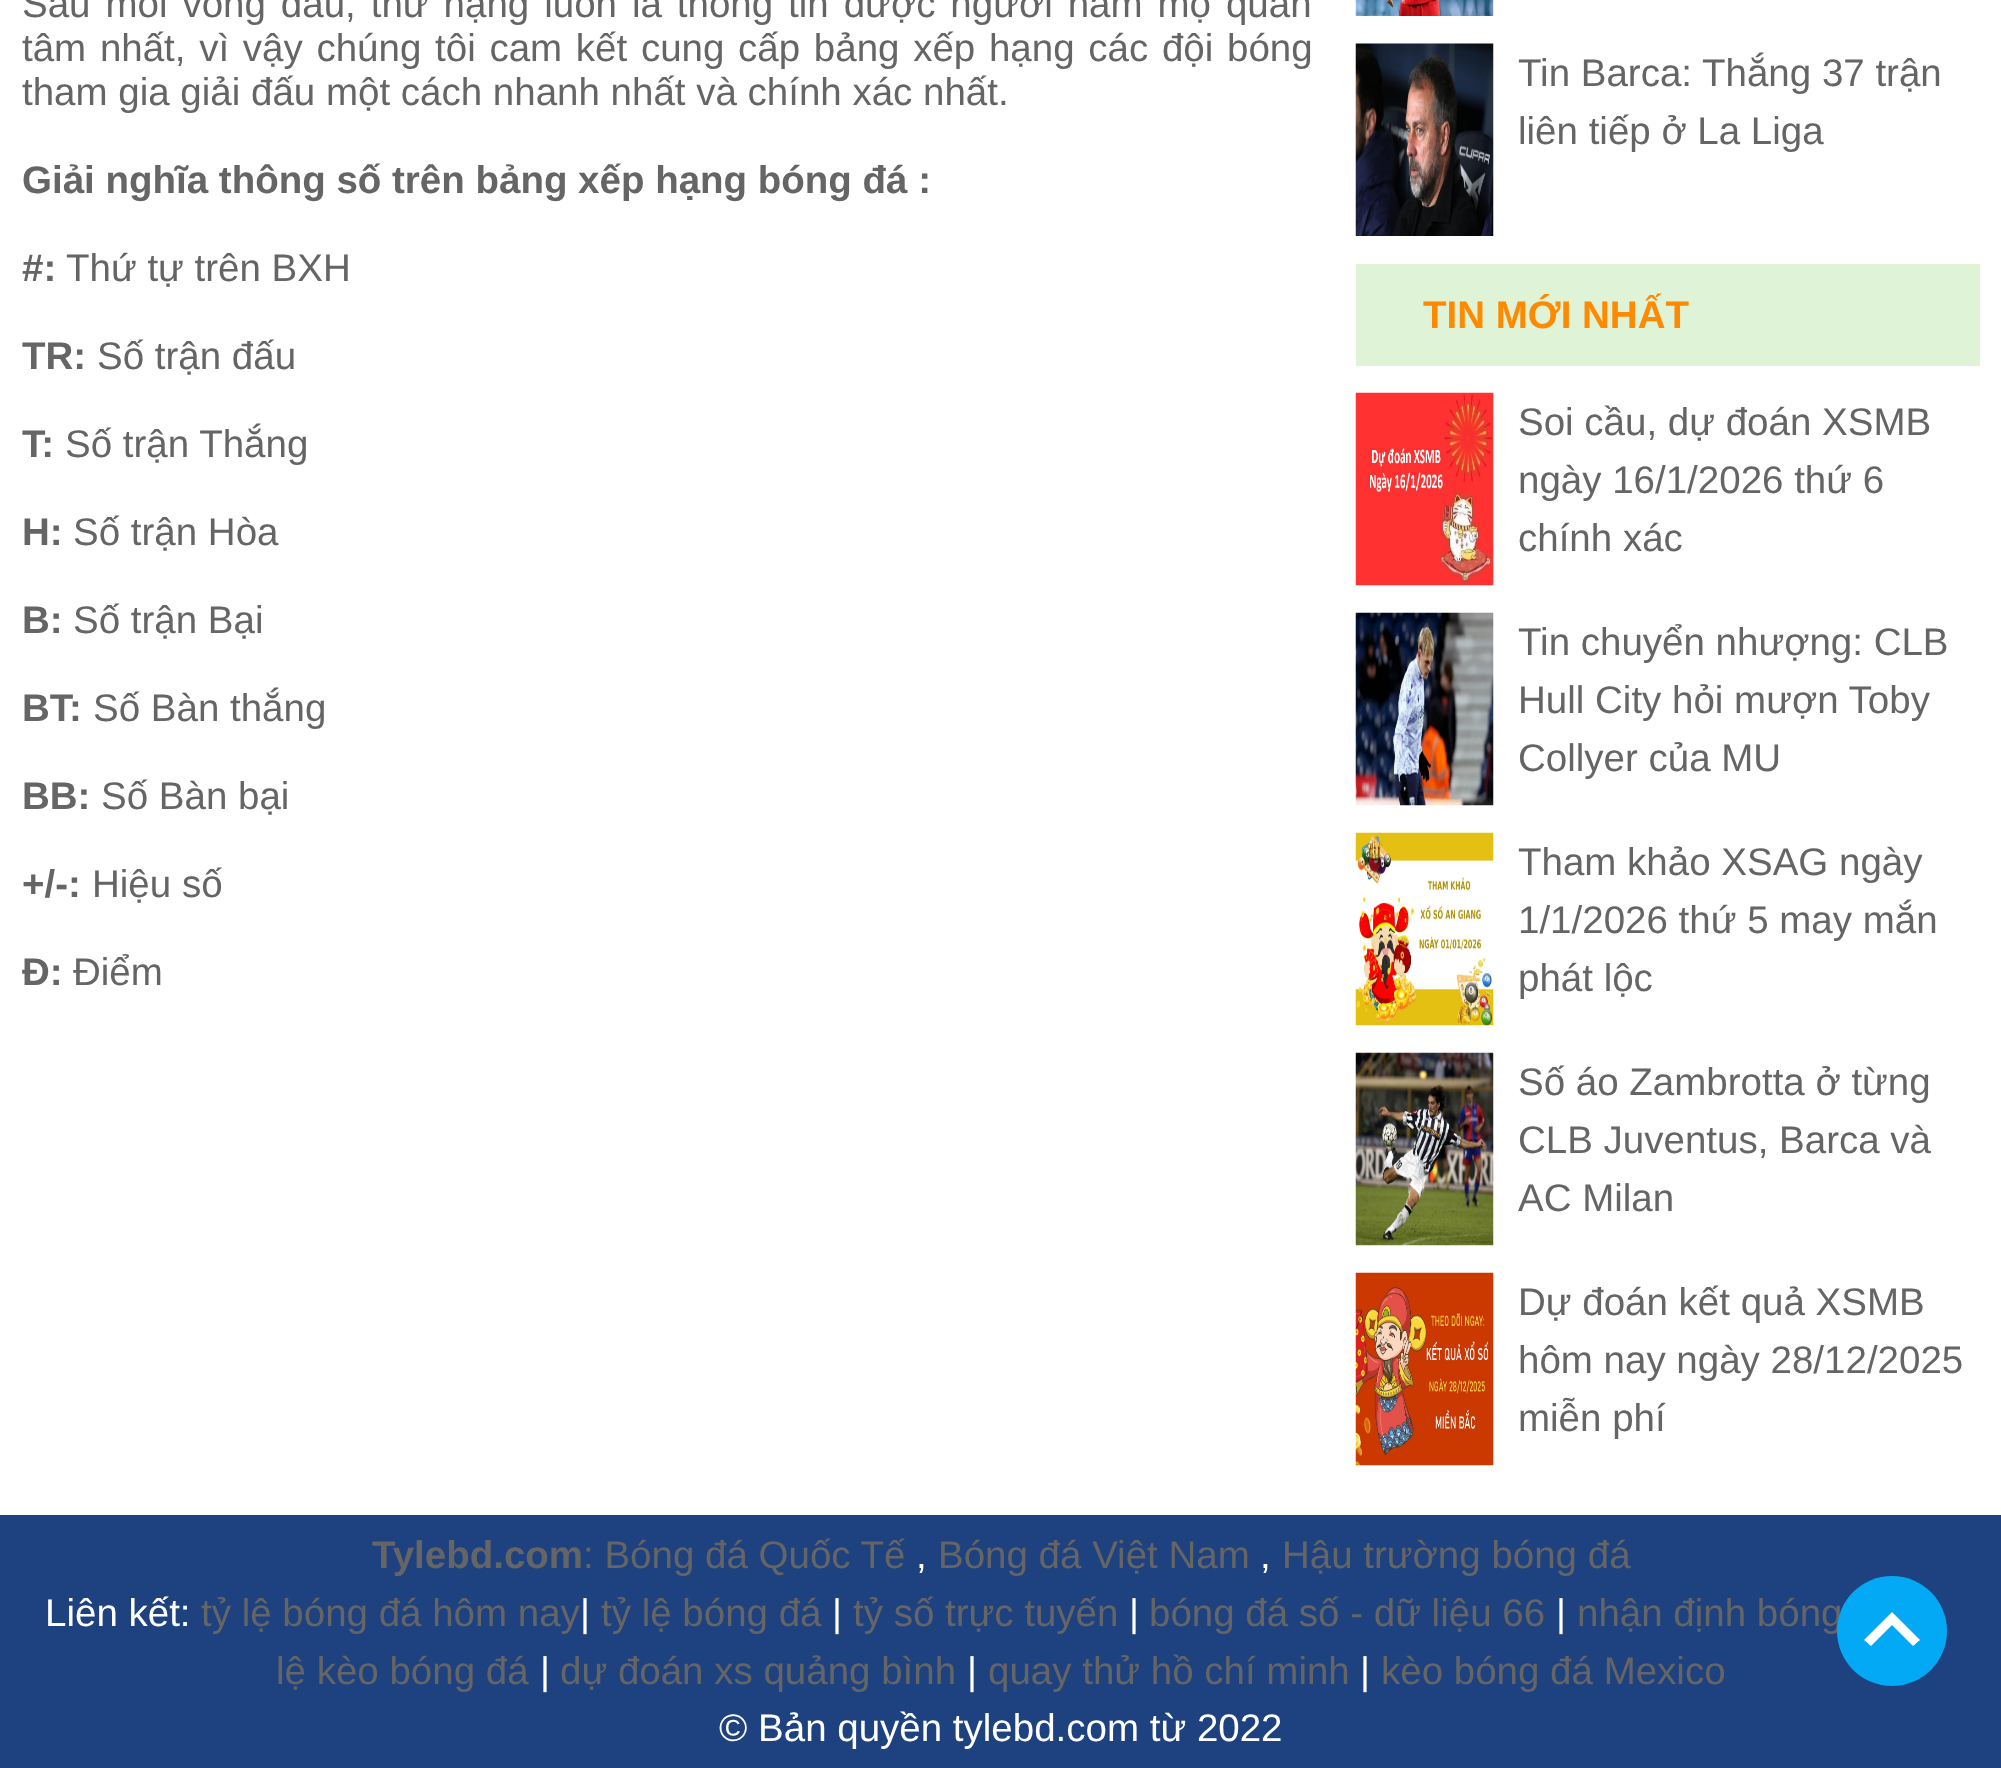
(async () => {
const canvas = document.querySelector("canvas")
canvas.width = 2001
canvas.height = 1768
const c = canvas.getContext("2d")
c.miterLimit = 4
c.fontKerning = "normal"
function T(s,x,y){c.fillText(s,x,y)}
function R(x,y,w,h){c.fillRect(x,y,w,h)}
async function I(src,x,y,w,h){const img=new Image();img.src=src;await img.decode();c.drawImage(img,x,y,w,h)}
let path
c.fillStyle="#fff"
R(0,0,2001,1768)
c.wordSpacing="4.25px"
c.font="38.5px Liberation Sans"
c.fillStyle="#656565"
T("Sau mỗi vòng đấu, thứ hạng luôn là thông tin được người hâm mộ quan",22,17)
c.wordSpacing="3px"
T("tâm nhất, vì vậy chúng tôi cam kết cung cấp bảng xếp hạng các đội bóng",22,61)
c.wordSpacing="0px"
T("tham gia giải đấu một cách nhanh nhất và chính xác nhất.",22,105)
c.font="bold 38.5px Liberation Sans"
T("Giải nghĩa thông số trên bảng xếp hạng bóng đá :",22,193)
T("#:",22,281)
c.font="38.5px Liberation Sans"
T("Thứ tự trên BXH",66,281)
c.font="bold 38.5px Liberation Sans"
T("TR:",22,369)
c.font="38.5px Liberation Sans"
T("Số trận đấu",97,369)
c.font="bold 38.5px Liberation Sans"
T("T:",22,457)
c.font="38.5px Liberation Sans"
T("Số trận Thắng",65,457)
c.font="bold 38.5px Liberation Sans"
T("H:",22,545)
c.font="38.5px Liberation Sans"
T("Số trận Hòa",73,545)
c.font="bold 38.5px Liberation Sans"
T("B:",22,633)
c.font="38.5px Liberation Sans"
T("Số trận Bại",73,633)
c.font="bold 38.5px Liberation Sans"
T("BT:",22,721)
c.font="38.5px Liberation Sans"
T("Số Bàn thắng",93,721)
c.font="bold 38.5px Liberation Sans"
T("BB:",22,809)
c.font="38.5px Liberation Sans"
T("Số Bàn bại",101,809)
c.font="bold 38.5px Liberation Sans"
T("+/-:",22,897)
c.font="38.5px Liberation Sans"
T("Hiệu số",92,897)
c.font="bold 38.5px Liberation Sans"
T("Đ:",22,985)
c.font="38.5px Liberation Sans"
T("Điểm",73,985)
await I("1.png",1355,0,139,16)
await I("2.png",1355,43,139,193)
T("Tin Barca: Thắng 37 trận",1518,86)
T("liên tiếp ở La Liga",1518,144)
c.fillStyle="#dff3d7"
R(1356,264,624,102)
c.font="bold 38.5px Liberation Sans"
c.fillStyle="#ff8a00"
T("TIN MỚI NHẤT",1423,328)
await I("3.png",1355,392,139,194)
c.font="38.5px Liberation Sans"
c.fillStyle="#656565"
T("Soi cầu, dự đoán XSMB",1518,435)
T("ngày 16/1/2026 thứ 6",1518,493)
T("chính xác",1518,551)
await I("4.png",1355,612,139,194)
T("Tin chuyển nhượng: CLB",1518,655)
T("Hull City hỏi mượn Toby",1518,713)
T("Collyer của MU",1518,771)
await I("5.png",1355,832,139,194)
T("Tham khảo XSAG ngày",1518,875)
T("1/1/2026 thứ 5 may mắn",1518,933)
T("phát lộc",1518,991)
await I("6.png",1355,1052,139,194)
T("Số áo Zambrotta ở từng",1518,1095)
T("CLB Juventus, Barca và",1518,1153)
T("AC Milan",1518,1211)
await I("7.png",1355,1272,139,194)
T("Dự đoán kết quả XSMB",1518,1315)
T("hôm nay ngày 28/12/2025",1518,1373)
T("miễn phí",1518,1431)
c.fillStyle="#1e4180"
R(0,1515,2001,253)
c.font="bold 38.5px Liberation Sans"
c.fillStyle="#656565"
T("Tylebd.com",372,1568)
c.font="38.5px Liberation Sans"
T(": Bóng đá Quốc Tế",583,1568)
c.fillStyle="#fff"
T(",",916,1568)
c.fillStyle="#656565"
T("Bóng đá Việt Nam",938,1568)
c.fillStyle="#fff"
T(",",1260,1568)
c.fillStyle="#656565"
T("Hậu trường bóng đá",1282,1568)
c.fillStyle="#fff"
T("Liên kết:",45,1626)
c.fillStyle="#656565"
T("tỷ lệ bóng đá hôm nay",201,1626)
c.fillStyle="#fff"
T("|",580,1626)
c.fillStyle="#656565"
T("tỷ lệ bóng đá",601,1626)
c.fillStyle="#fff"
T("|",832,1626)
c.fillStyle="#656565"
T("tỷ số trực tuyến",853,1626)
c.fillStyle="#fff"
T("|",1129,1626)
c.fillStyle="#656565"
T("bóng đá số - dữ liệu 66",1149,1626)
c.fillStyle="#fff"
T("|",1556,1626)
c.fillStyle="#656565"
T("nhận định bóng",1577,1626)
T("lệ kèo bóng đá",276,1684)
c.fillStyle="#fff"
T("|",540,1684)
c.fillStyle="#656565"
T("dự đoán xs quảng bình",560,1684)
c.fillStyle="#fff"
T("|",967,1684)
c.fillStyle="#656565"
T("quay thử hồ chí minh",988,1684)
c.fillStyle="#fff"
T("|",1360,1684)
c.fillStyle="#656565"
T("kèo bóng đá Mexico",1381,1684)
c.fillStyle="#fff"
T("© Bản quyền tylebd.com từ 2022",719,1741)
c.fillStyle="#03a9f4"
c.beginPath()
c.arc(1892,1631,55,0,7)
c.fill()
c.fillStyle="#fff"
path = new Path2D("M1871 1646l21-21l21 21l7-6l-28-28l-28 28z")
c.fill(path)
})()
